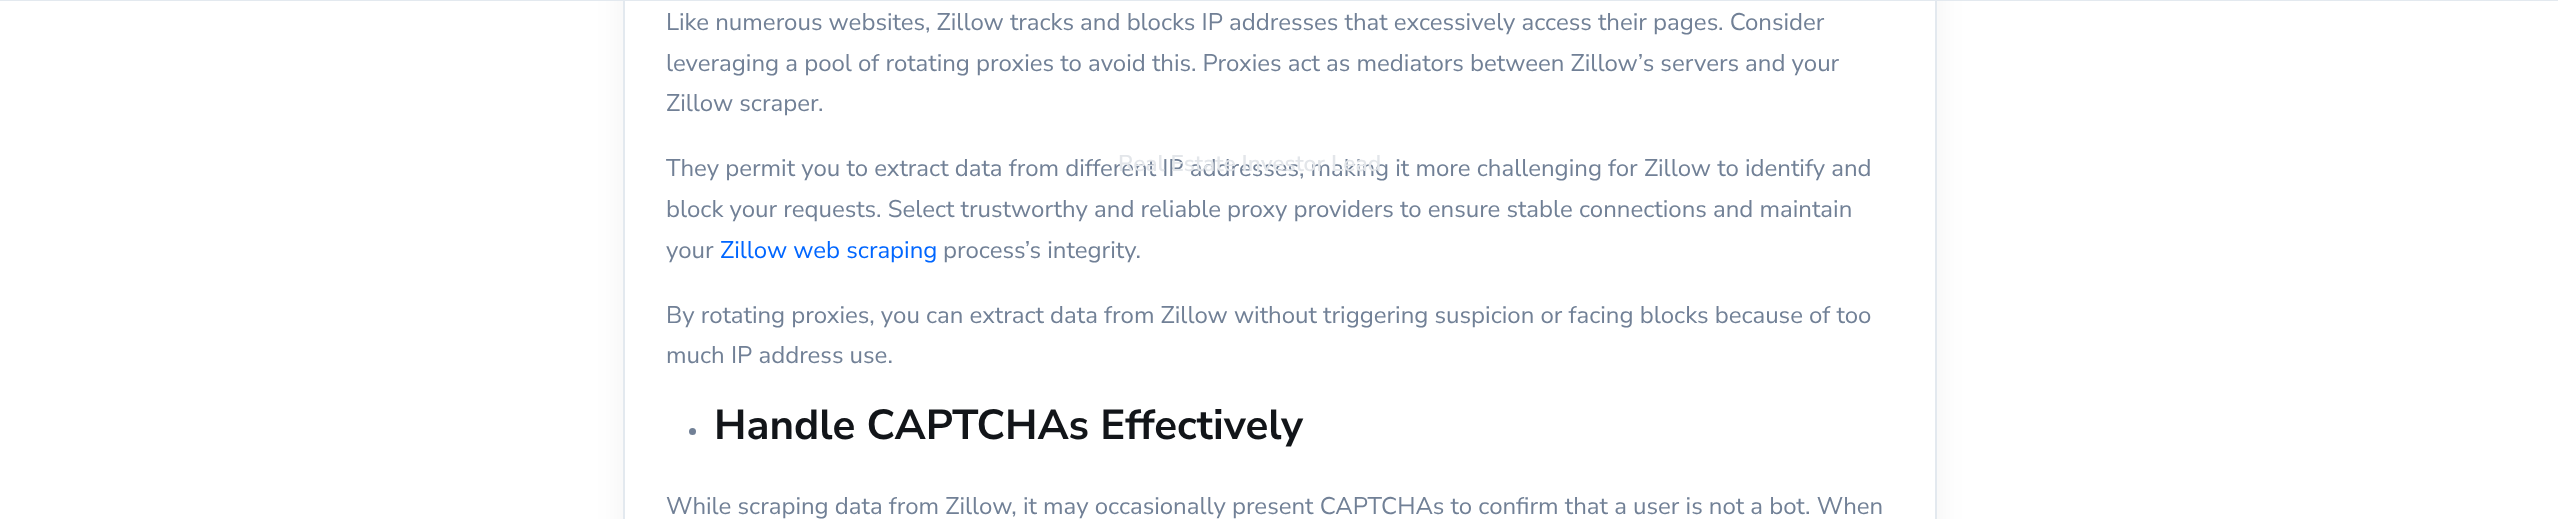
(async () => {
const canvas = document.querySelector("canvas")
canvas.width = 2558
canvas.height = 519
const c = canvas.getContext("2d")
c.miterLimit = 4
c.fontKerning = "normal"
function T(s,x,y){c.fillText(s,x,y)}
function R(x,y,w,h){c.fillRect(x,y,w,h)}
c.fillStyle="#fff"
R(0,0,2558,519)
c.fillStyle="#1215190d"
c.filter="blur(15px)"
c.beginPath()
c.roundRect(623,-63,1314,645,18)
c.fill()
c.filter="none"
c.fillStyle="#fff"
R(625,1,1310,518)
c.strokeStyle="#e3e9ef"
c.lineWidth=2
c.strokeRect(624,-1,1312,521)
c.font="24px Nunito Sans"
c.fillStyle="#718096"
T("Like numerous websites, Zillow tracks and blocks IP addresses that excessively access their pages. Consider",666,30)
T("leveraging a pool of rotating proxies to avoid this. Proxies act as mediators between Zillow’s servers and your",666,71)
T("Zillow scraper.",666,111)
T("They permit you to extract data from different IP addresses, making it more challenging for Zillow to identify and",666,176)
T("block your requests. Select trustworthy and reliable proxy providers to ensure stable connections and maintain",666,217)
T("your",666,258)
c.fillStyle="#06f"
T("Zillow web scraping",720,258)
c.fillStyle="#718096"
T("process’s integrity.",943,258)
T("By rotating proxies, you can extract data from Zillow without triggering suspicion or facing blocks because of too",666,323)
T("much IP address use.",666,363)
c.beginPath()
c.arc(692.5,431.5,3.5,0,7)
c.fill()
c.font="bold 42px Nunito Sans"
c.fillStyle="#121519"
T("Handle CAPTCHAs Effectively",714,439)
c.font="24px Nunito Sans"
c.fillStyle="#718096"
T("While scraping data from Zillow, it may occasionally present CAPTCHAs to confirm that a user is not a bot. When",666,514)
c.fillStyle="#e3e9ef"
R(0,0,2558,1)
c.font="600 22.75px Nunito Sans"
c.fillStyle="#e3e6ea"
T("Real Estate Investor Lead",1118,171)
})()
